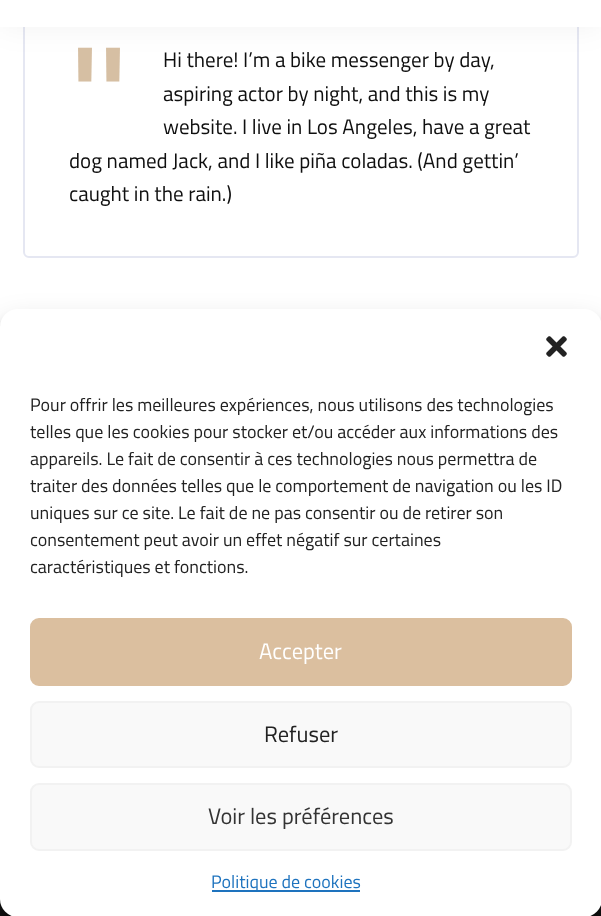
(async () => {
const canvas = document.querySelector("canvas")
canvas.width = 601
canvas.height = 916
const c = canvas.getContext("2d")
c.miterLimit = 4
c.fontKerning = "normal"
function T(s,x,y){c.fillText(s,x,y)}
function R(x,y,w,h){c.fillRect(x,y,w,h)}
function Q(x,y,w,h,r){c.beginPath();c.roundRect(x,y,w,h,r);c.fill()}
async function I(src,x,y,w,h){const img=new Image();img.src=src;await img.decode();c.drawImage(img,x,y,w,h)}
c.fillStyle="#121212"
R(0,0,601,916)
c.fillStyle="#fff"
R(0,27,601,300)
c.beginPath()
c.roundRect(24,-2,554,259,5)
c.strokeStyle="#e5e7f2"
c.lineWidth=2
c.stroke()
c.fillStyle="#0000000d"
c.filter="blur(15px)"
c.beginPath()
c.rect(0,-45,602,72)
c.fill()
c.filter="none"
c.fillStyle="#fff"
R(0,0,601,27)
c.font="21px Titillium Web"
c.fillStyle="#0f0f0f"
T("Hi there! I’m a bike messenger by day,",163,67)
T("aspiring actor by night, and this is my",163,101)
T("website. I live in Los Angeles, have a great",163,134)
T("dog named Jack, and I like piña coladas. (And gettin’",69,168)
T("caught in the rain.)",69,201)
c.font="bold 135px Titillium Web"
c.fillStyle="#d6bfa3"
T("''",69,145)
c.fillStyle="#0000003b"
c.filter="blur(4.5px)"
c.beginPath()
c.roundRect(0,318,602,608,18)
c.fill()
c.filter="none"
c.fillStyle="#00000030"
c.filter="blur(15px)"
c.beginPath()
c.roundRect(0,324,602,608,18)
c.fill()
c.filter="none"
c.fillStyle="#fff"
Q(0,309,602,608,18)
await I("1.png",546,336,21,21)
c.font="18px Titillium Web"
c.fillStyle="#222"
T("Pour offrir les meilleures expériences, nous utilisons des technologies",30,411)
T("telles que les cookies pour stocker et/ou accéder aux informations des",30,438)
T("appareils. Le fait de consentir à ces technologies nous permettra de",30,465)
T("traiter des données telles que le comportement de navigation ou les ID",30,492)
T("uniques sur ce site. Le fait de ne pas consentir ou de retirer son",30,519)
T("consentement peut avoir un effet négatif sur certaines",30,546)
T("caractéristiques et fonctions.",30,573)
c.fillStyle="#dbbf9f"
c.beginPath()
c.roundRect(31,619,540,66,8)
c.fill()
c.strokeStyle="#dbbf9f"
c.stroke()
c.font="22.5px Titillium Web"
c.fillStyle="#fff"
T("Accepter",259,659)
c.fillStyle="#f9f9f9"
c.beginPath()
c.roundRect(31,702,540,65,8)
c.fill()
c.strokeStyle="#f2f2f2"
c.stroke()
c.fillStyle="#222"
T("Refuser",264,742)
c.fillStyle="#f9f9f9"
c.beginPath()
c.roundRect(31,784,540,66,8)
c.fill()
c.stroke()
c.fillStyle="#333"
T("Voir les préférences",208,824)
c.fillStyle="#1e73be"
R(212,890,148,2)
c.font="18px Titillium Web"
T("Politique de cookies",211,888)
})()
